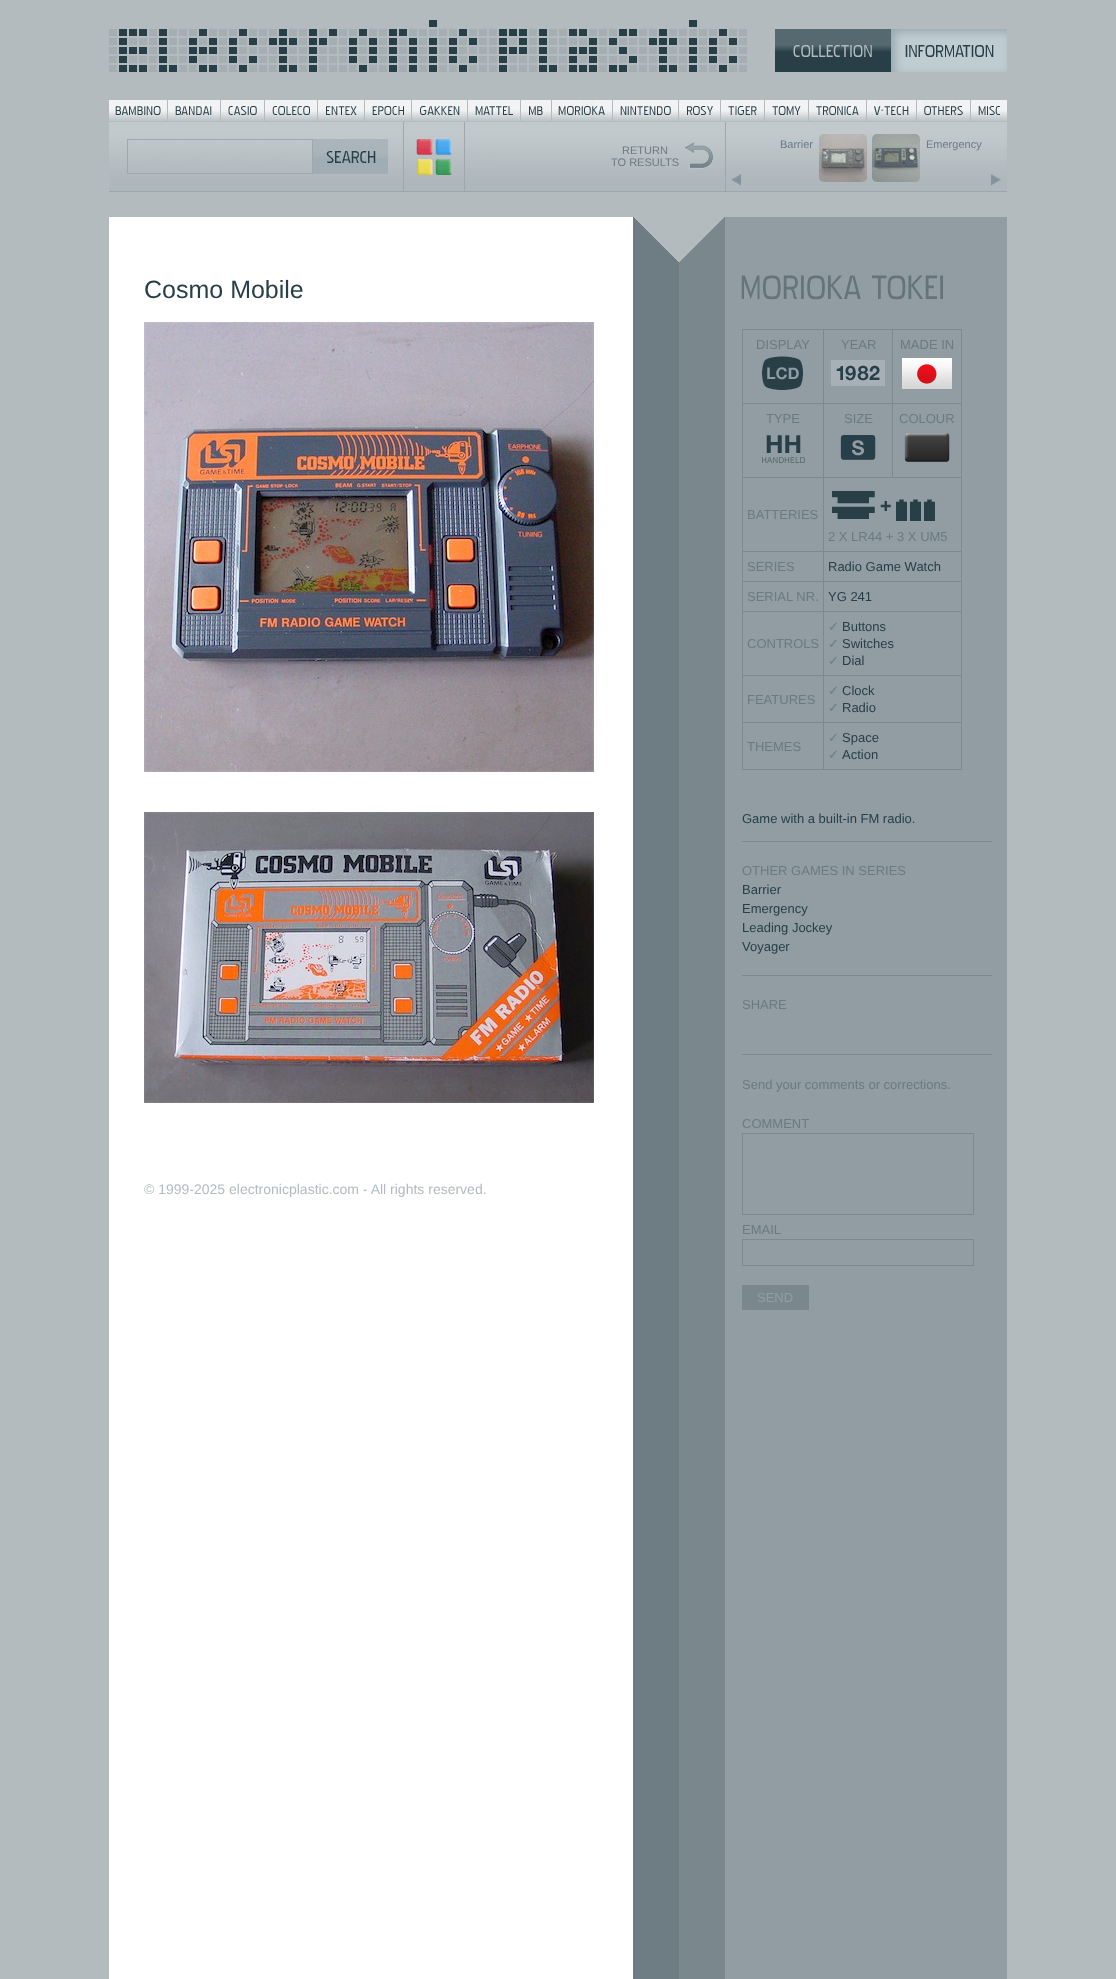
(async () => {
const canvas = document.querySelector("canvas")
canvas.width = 1116
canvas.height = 1979
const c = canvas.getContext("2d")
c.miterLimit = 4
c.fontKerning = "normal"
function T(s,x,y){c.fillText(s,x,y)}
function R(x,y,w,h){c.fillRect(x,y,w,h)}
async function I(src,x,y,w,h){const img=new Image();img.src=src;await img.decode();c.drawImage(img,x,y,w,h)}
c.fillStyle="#b3bbbf"
R(0,0,1116,1979)
await I("1.png",109,217,898,1762)
await I("2.png",109,20,638,52)
await I("3.png",775,29,116,43)
await I("4.png",891,29,116,43)
await I("5.png",109,100,898,21)
await I("6.png",109,122,898,69)
c.fillStyle="#9da8ad"
R(109,191,898,1)
R(403,122,1,69)
c.strokeStyle="#9ea8ad"
c.strokeRect(127.5,139.5,185,34)
await I("7.png",313,139,75,35)
R(464,122,1,69)
await I("8.png",416,139,36,36)
await I("9.png",685,141,28,28)
c.font="11px Liberation Sans"
c.fillStyle="#6b7b82"
T("RETURN",622,154)
T("TO RESULTS",611,166)
await I("10.png",731,174,270,12)
c.fillStyle="#9da8ad"
R(725,122,1,69)
c.fillStyle="#6b7b82"
T("Barrier",780,148)
await I("11.png",819,134,48,48)
await I("12.png",872,134,48,48)
T("Emergency",926,148)
c.font="25px Liberation Sans"
c.fillStyle="#283f48"
T("Cosmo Mobile",144,298)
await I("13.png",144,322,450,450)
await I("14.png",144,812,450,291)
c.font="14px Liberation Sans"
c.fillStyle="#b3bbbf"
T("© 1999-2025 electronicplastic.com - All rights reserved.",144,1194)
await I("15.png",741,275,202,25)
c.fillStyle="#7c8a90"
R(892,329,70,1)
R(892,403,70,1)
R(823,477,139,1)
R(892,403,1,75)
R(823,403,70,1)
R(892,329,1,75)
R(823,329,70,1)
R(823,551,139,1)
R(823,581,139,1)
R(823,611,139,1)
R(823,675,139,1)
R(823,722,139,1)
R(961,722,1,48)
R(823,769,139,1)
R(823,722,1,48)
R(742,722,82,1)
R(823,675,1,48)
R(742,675,82,1)
R(823,611,1,65)
R(742,611,82,1)
R(823,581,1,31)
R(742,581,82,1)
R(823,551,1,31)
R(742,551,82,1)
R(823,477,1,75)
R(742,477,82,1)
R(823,403,1,75)
R(742,403,82,1)
R(823,329,1,75)
R(742,329,82,1)
R(742,769,82,1)
R(742,722,1,48)
R(742,675,1,48)
R(742,611,1,65)
R(742,581,1,31)
R(742,551,1,31)
R(742,477,1,75)
R(742,403,1,75)
R(742,329,1,75)
c.font="13px Liberation Sans"
c.fillStyle="#6b7b82"
T("DISPLAY",756,349)
await I("16.png",762,356,41,34)
T("YEAR",841,349)
await I("17.png",831,360,54,26)
c.fillStyle="#7c8a90"
R(961,675,1,48)
R(961,611,1,65)
R(961,581,1,31)
R(961,551,1,31)
R(961,477,1,75)
R(961,403,1,75)
R(961,329,1,75)
c.fillStyle="#6b7b82"
T("MADE IN",900,349)
await I("18.png",902,358,50,31)
T("TYPE",766,423)
await I("19.png",762,435,43,28)
T("SIZE",844,423)
await I("20.png",840,435,36,25)
T("COLOUR",899,423)
await I("21.png",904,433,46,29)
T("BATTERIES",747,519)
await I("22.png",832,491,103,30)
T("2 X LR44 + 3 X UM5",828,541)
T("SERIES",747,571)
c.fillStyle="#283f48"
T("Radio Game Watch",828,571)
c.fillStyle="#6b7b82"
T("SERIAL NR.",747,601)
c.fillStyle="#283f48"
T("YG 241",828,601)
c.fillStyle="#6b7b82"
T("CONTROLS",747,648)
c.font="13px DejaVu Sans"
T("✓",828,631)
c.font="13px Liberation Sans"
c.fillStyle="#283f48"
T("Buttons",842,631)
c.font="13px DejaVu Sans"
c.fillStyle="#6b7b82"
T("✓",828,648)
c.font="13px Liberation Sans"
c.fillStyle="#283f48"
T("Switches",842,648)
c.font="13px DejaVu Sans"
c.fillStyle="#6b7b82"
T("✓",828,665)
c.font="13px Liberation Sans"
c.fillStyle="#283f48"
T("Dial",842,665)
c.fillStyle="#6b7b82"
T("FEATURES",747,704)
c.font="13px DejaVu Sans"
T("✓",828,695)
c.font="13px Liberation Sans"
c.fillStyle="#283f48"
T("Clock",842,695)
c.font="13px DejaVu Sans"
c.fillStyle="#6b7b82"
T("✓",828,712)
c.font="13px Liberation Sans"
c.fillStyle="#283f48"
T("Radio",842,712)
c.fillStyle="#6b7b82"
T("THEMES",747,751)
c.font="13px DejaVu Sans"
T("✓",828,742)
c.font="13px Liberation Sans"
c.fillStyle="#283f48"
T("Space",842,742)
c.font="13px DejaVu Sans"
c.fillStyle="#6b7b82"
T("✓",828,759)
c.font="13px Liberation Sans"
c.fillStyle="#283f48"
T("Action",842,759)
T("Game with a built-in FM radio.",742,823)
c.fillStyle="#7c8a90"
R(742,841,250,1)
c.fillStyle="#6b7b82"
T("OTHER GAMES IN SERIES",742,875)
c.fillStyle="#283f48"
T("Barrier",742,894)
T("Emergency",742,913)
T("Leading Jockey",742,932)
T("Voyager",742,951)
c.fillStyle="#7c8a90"
R(742,975,250,1)
c.fillStyle="#6b7b82"
T("SHARE",742,1009)
c.fillStyle="#7c8a90"
R(742,1054,250,1)
c.fillStyle="#6b7b82"
T("Send your comments or corrections.",742,1089)
T("COMMENT",742,1128)
c.strokeStyle="#7c8a90"
c.strokeRect(742.5,1133.5,231,81)
T("EMAIL",742,1234)
c.strokeRect(742.5,1239.5,231,26)
c.fillStyle="#7a888e"
R(742,1285,67,25)
c.fillStyle="#919da2"
T("SEND",757,1302)
})()
